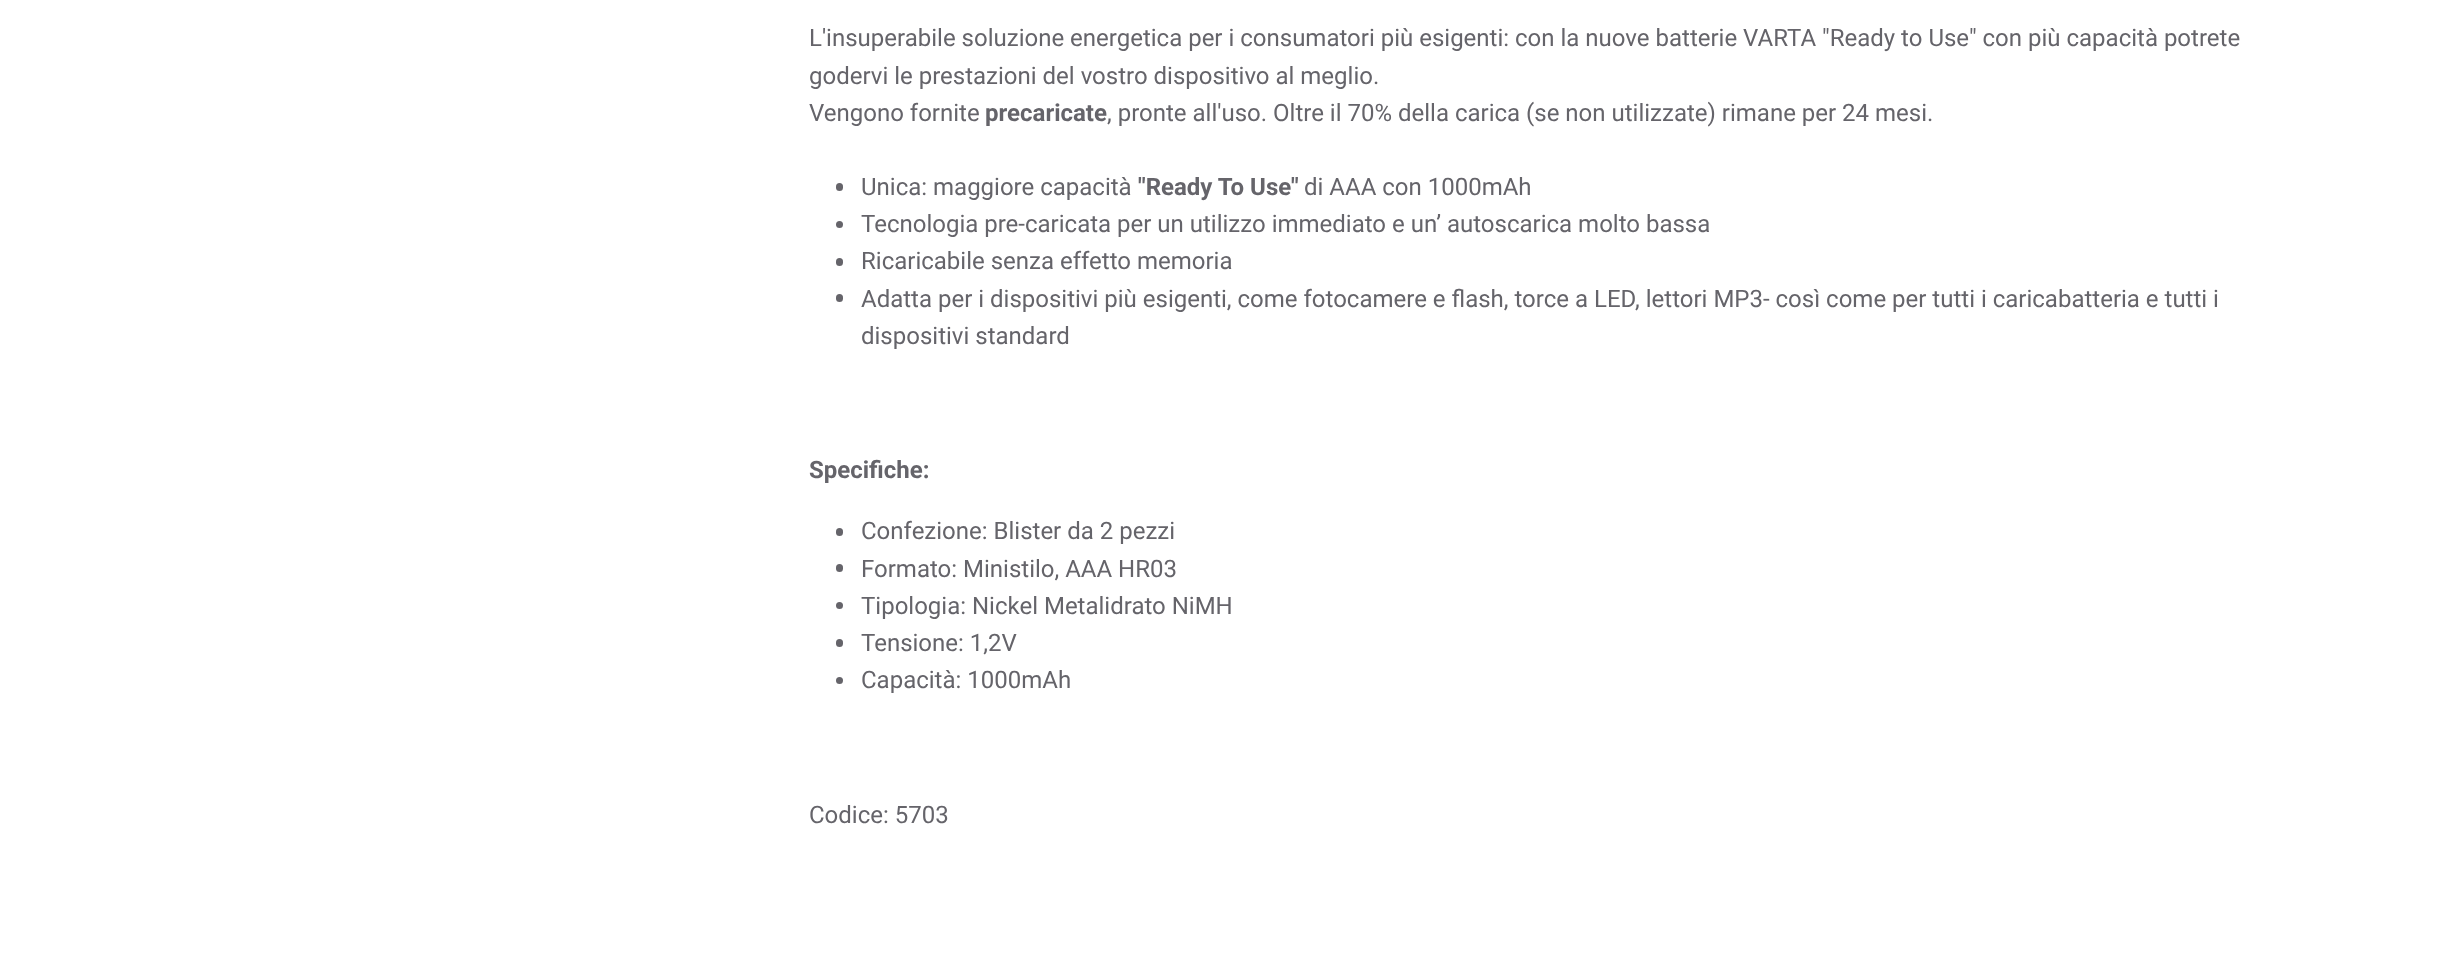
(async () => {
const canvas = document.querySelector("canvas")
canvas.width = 2441
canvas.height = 959
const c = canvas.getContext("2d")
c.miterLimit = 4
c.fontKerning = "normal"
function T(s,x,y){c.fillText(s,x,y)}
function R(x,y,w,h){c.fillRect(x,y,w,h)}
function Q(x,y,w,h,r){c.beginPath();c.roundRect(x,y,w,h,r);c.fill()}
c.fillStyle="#fff"
R(0,0,2441,959)
c.font="24px Roboto"
c.fillStyle="#65646a"
T("L'insuperabile soluzione energetica per i consumatori più esigenti: con la nuove batterie VARTA \"Ready to Use\" con più capacità potrete",809,46)
T("godervi le prestazioni del vostro dispositivo al meglio.",809,84)
T("Vengono fornite",809,121)
c.font="bold 24px Roboto"
T("precaricate",985,121)
c.font="24px Roboto"
T(", pronte all'uso. Oltre il 70% della carica (se non utilizzate) rimane per 24 mesi.",1107,121)
Q(836,183,7,8,3.5)
T("Unica: maggiore capacità",861,195)
c.font="bold 24px Roboto"
T("\"Ready To Use\"",1138,195)
c.font="24px Roboto"
T("di AAA con 1000mAh",1304,195)
c.beginPath()
c.arc(839.5,224.5,3.5,0,7)
c.fill()
T("Tecnologia pre-caricata per un utilizzo immediato e un’ autoscarica molto bassa",861,232)
Q(836,258,7,8,3.5)
T("Ricaricabile senza effetto memoria",861,269)
Q(836,294,7,8,3.5)
T("Adatta per i dispositivi più esigenti, come fotocamere e flash, torce a LED, lettori MP3- così come per tutti i caricabatteria e tutti i",861,307)
T("dispositivi standard",861,344)
c.font="bold 24px Roboto"
T("Specifiche:",809,478)
Q(836,528,7,8,3.5)
c.font="24px Roboto"
T("Confezione: Blister da 2 pezzi",861,539)
Q(836,564,7,8,3.5)
T("Formato: Ministilo, AAA HR03",861,577)
c.beginPath()
c.arc(839.5,605.5,3.5,0,7)
c.fill()
T("Tipologia: Nickel Metalidrato NiMH",861,614)
Q(836,639,7,8,3.5)
T("Tensione: 1,2V",861,651)
c.beginPath()
c.arc(839.5,680.5,3.5,0,7)
c.fill()
T("Capacità: 1000mAh",861,688)
T("Codice: 5703",809,823)
})()
